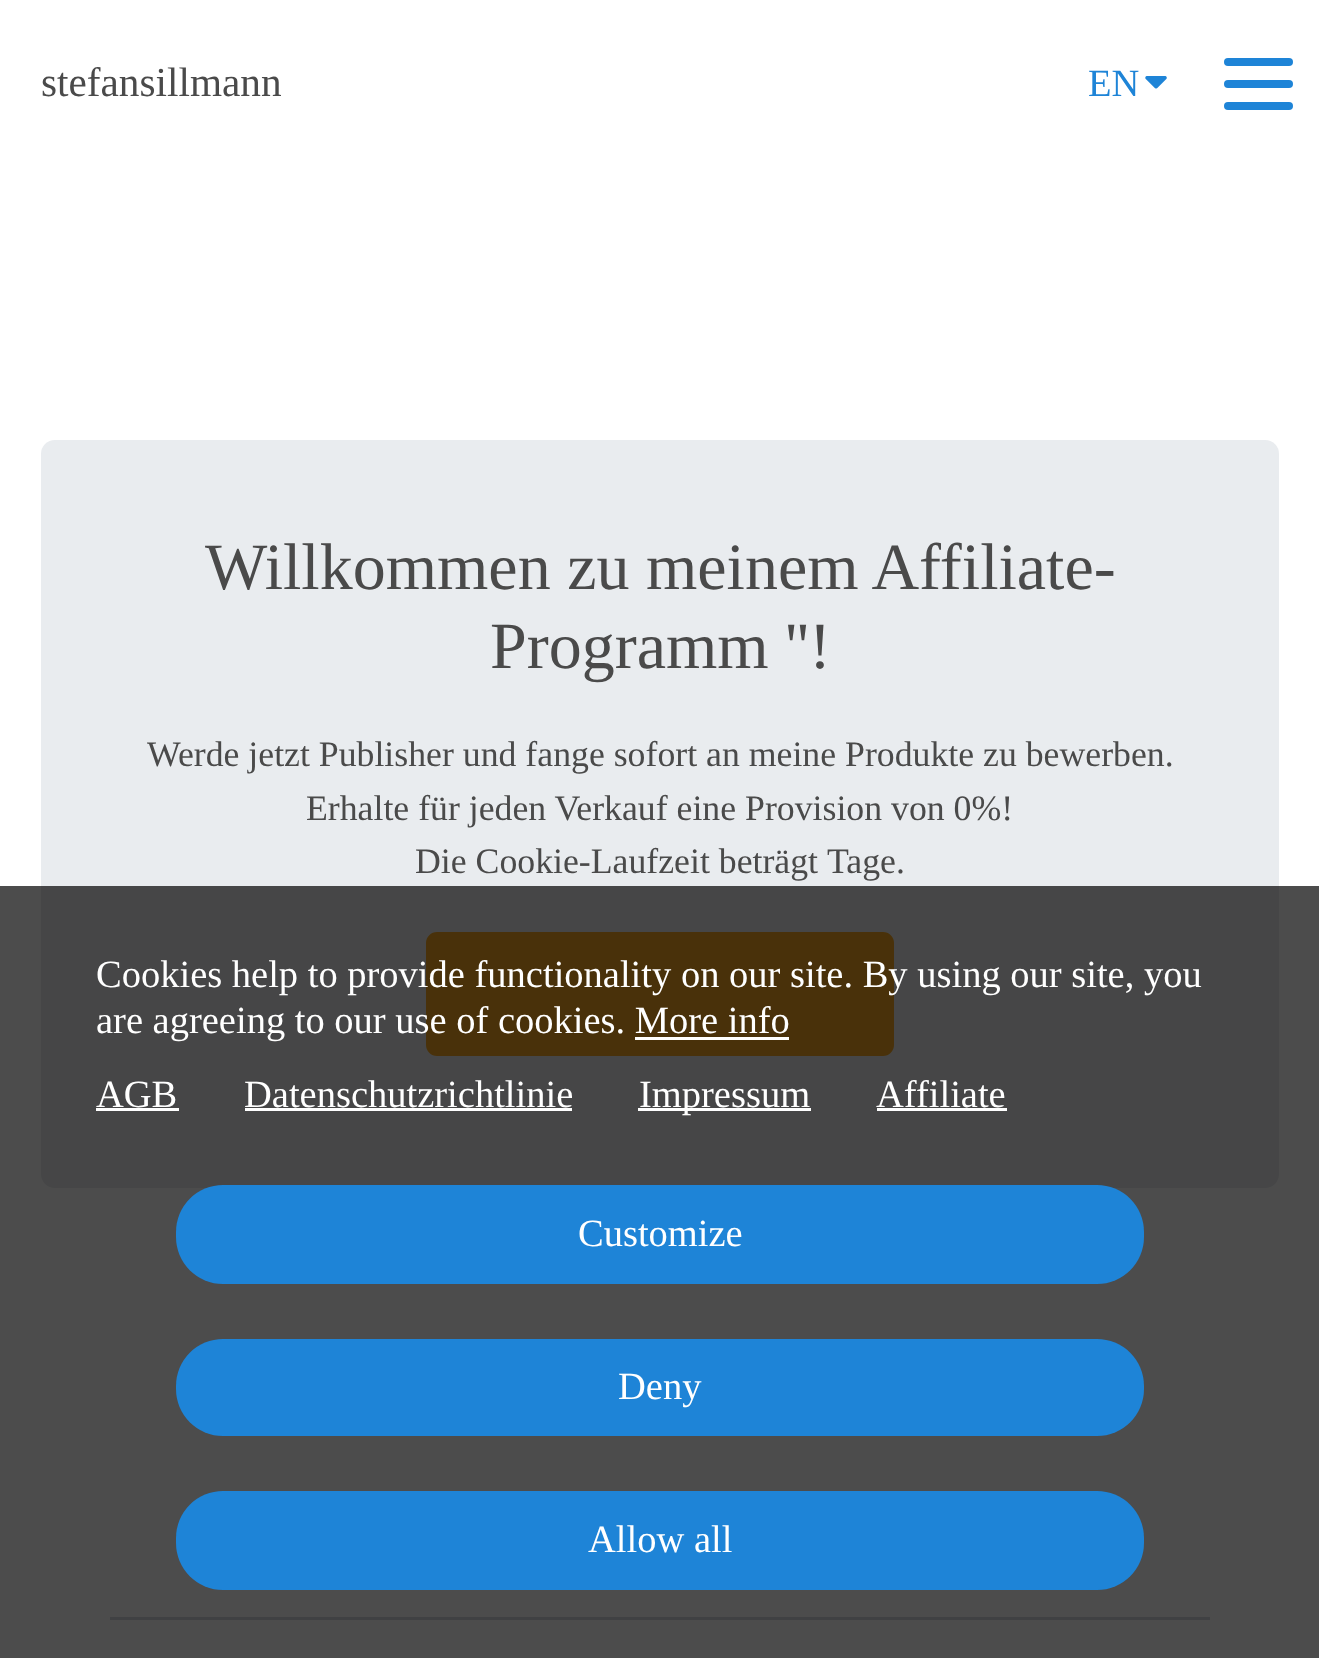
(async () => {
const canvas = document.querySelector("canvas")
canvas.width = 1319
canvas.height = 1658
const c = canvas.getContext("2d")
c.miterLimit = 4
c.fontKerning = "normal"
function T(s,x,y){c.fillText(s,x,y)}
function R(x,y,w,h){c.fillRect(x,y,w,h)}
function Q(x,y,w,h,r){c.beginPath();c.roundRect(x,y,w,h,r);c.fill()}
async function I(src,x,y,w,h){const img=new Image();img.src=src;await img.decode();c.drawImage(img,x,y,w,h)}
c.fillStyle="#fff"
R(0,0,1319,1658)
c.font="41.25px Liberation Serif"
c.fillStyle="#4a4a4a"
T("stefansillmann",41,96)
c.font="38.5px Liberation Serif"
c.fillStyle="#1e84d7"
T("EN",1088,96)
await I("1.png",1145,76,22,13)
Q(1224,58,69,8,4)
Q(1224,80,69,8,4)
Q(1224,102,69,8,4)
c.fillStyle="#e9ecef"
Q(41,440,1238,748,14)
c.font="66px Liberation Serif"
c.fillStyle="#4a4a4a"
T("Willkommen zu meinem Affiliate-",205,589)
T("Programm ''!",490,668)
c.font="35.75px Liberation Serif"
T("Werde jetzt Publisher und fange sofort an meine Produkte zu bewerben.",147,766)
T("Erhalte für jeden Verkauf eine Provision von 0%!",306,820)
T("Die Cookie-Laufzeit beträgt",415,873)
T("Tage.",827,873)
c.fillStyle="#f5a623"
c.beginPath()
c.roundRect(429,935,462,118,8)
c.fill()
c.strokeStyle="#f5a623"
c.lineWidth=6
c.stroke()
c.fillStyle="#d7dadf"
R(110,1617,1100,3)
c.fillStyle="#000000b3"
R(0,886,1319,772)
c.font="38.5px Liberation Serif"
c.fillStyle="#fff"
T("Cookies help to provide functionality on our site. By using our site, you",96,987)
T("are agreeing to our use of cookies. More info",96,1033)
R(635,1037,154,3)
T("AGB",96,1107)
R(96,1108,83,3)
T("Datenschutzrichtlinie",244,1107)
R(245,1108,327,3)
R(638,1108,173,3)
T("Impressum",639,1107)
T("Affiliate",876,1107)
R(877,1108,130,3)
c.fillStyle="#1e84d7"
Q(176,1185,968,99,47)
c.fillStyle="#fff"
T("Customize",578,1246)
c.fillStyle="#1e84d7"
Q(176,1339,968,97,47)
c.fillStyle="#fff"
T("Deny",618,1399)
c.fillStyle="#1e84d7"
Q(176,1491,968,99,47)
c.fillStyle="#fff"
T("Allow all",588,1552)
})()
